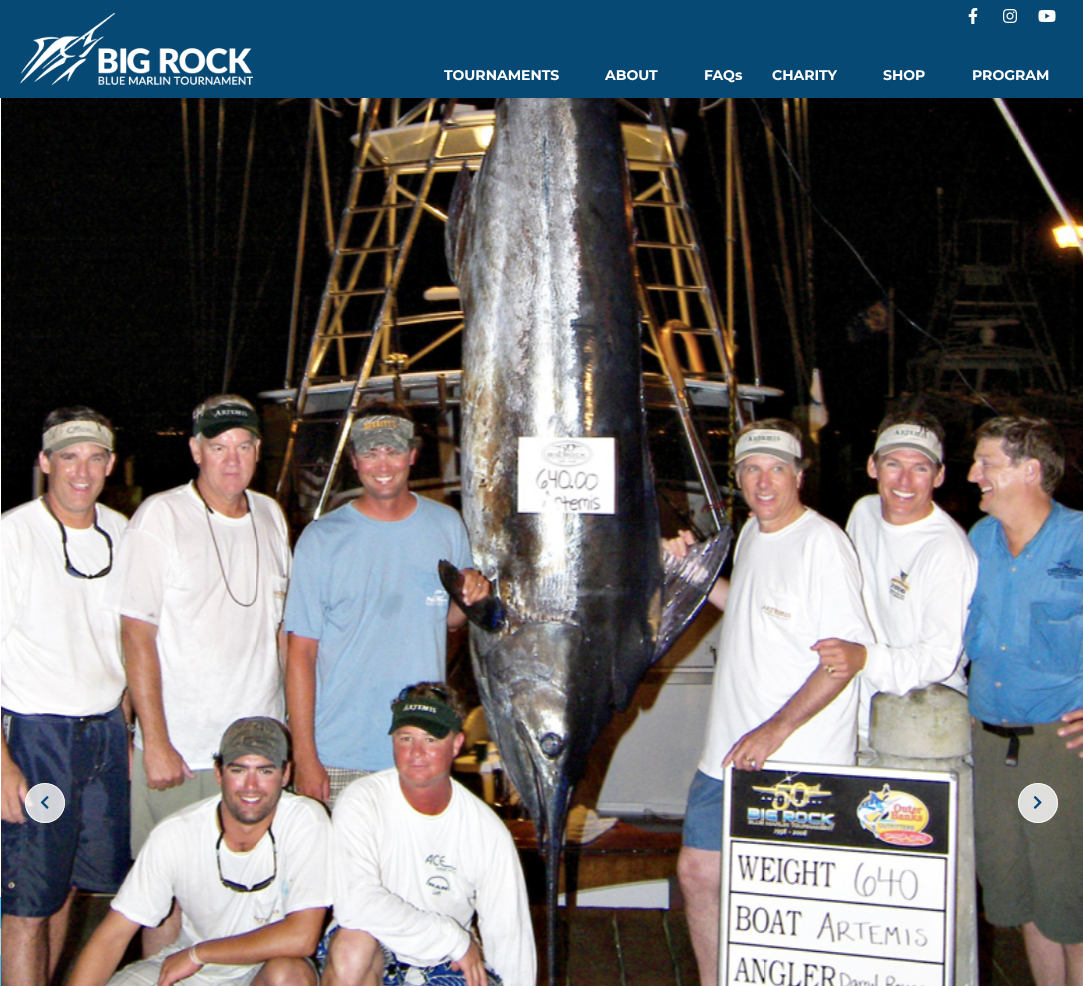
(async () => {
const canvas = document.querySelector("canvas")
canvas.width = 1083
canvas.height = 986
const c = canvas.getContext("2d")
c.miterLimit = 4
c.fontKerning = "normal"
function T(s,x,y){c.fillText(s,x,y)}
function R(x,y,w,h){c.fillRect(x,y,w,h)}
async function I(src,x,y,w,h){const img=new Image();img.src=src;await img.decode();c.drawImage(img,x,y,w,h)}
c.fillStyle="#fff"
R(0,0,1083,986)
c.fillStyle="#064974"
R(0,0,1083,98)
await I("1.png",20,13,233,72)
await I("2.png",968,8,10,16)
await I("3.png",1003,9,14,14)
await I("4.png",1038,10,18,12)
c.font="bold 14px Montserrat"
c.fillStyle="#fff"
T("TOURNAMENTS",444,80)
T("ABOUT",605,80)
T("FAQs",704,80)
T("CHARITY",772,80)
T("SHOP",883,80)
T("PROGRAM",972,80)
await I("5.png",1,98,1082,888)
c.fillStyle="#ffffffcc"
c.beginPath()
c.arc(45,803,20,0,7)
c.fill()
c.beginPath()
c.arc(45,803,19.5,0,7)
c.strokeStyle="#ffffffcc"
c.stroke()
await I("6.png",40,796,9,13)
c.beginPath()
c.arc(1038,803,20,0,7)
c.fill()
c.beginPath()
c.arc(1038,803,19.5,0,7)
c.stroke()
await I("7.png",1033,796,9,13)
c.fillStyle="#40c2f3"
R(0,897,1,89)
await I("8.png",0,928,1,28)
})()
